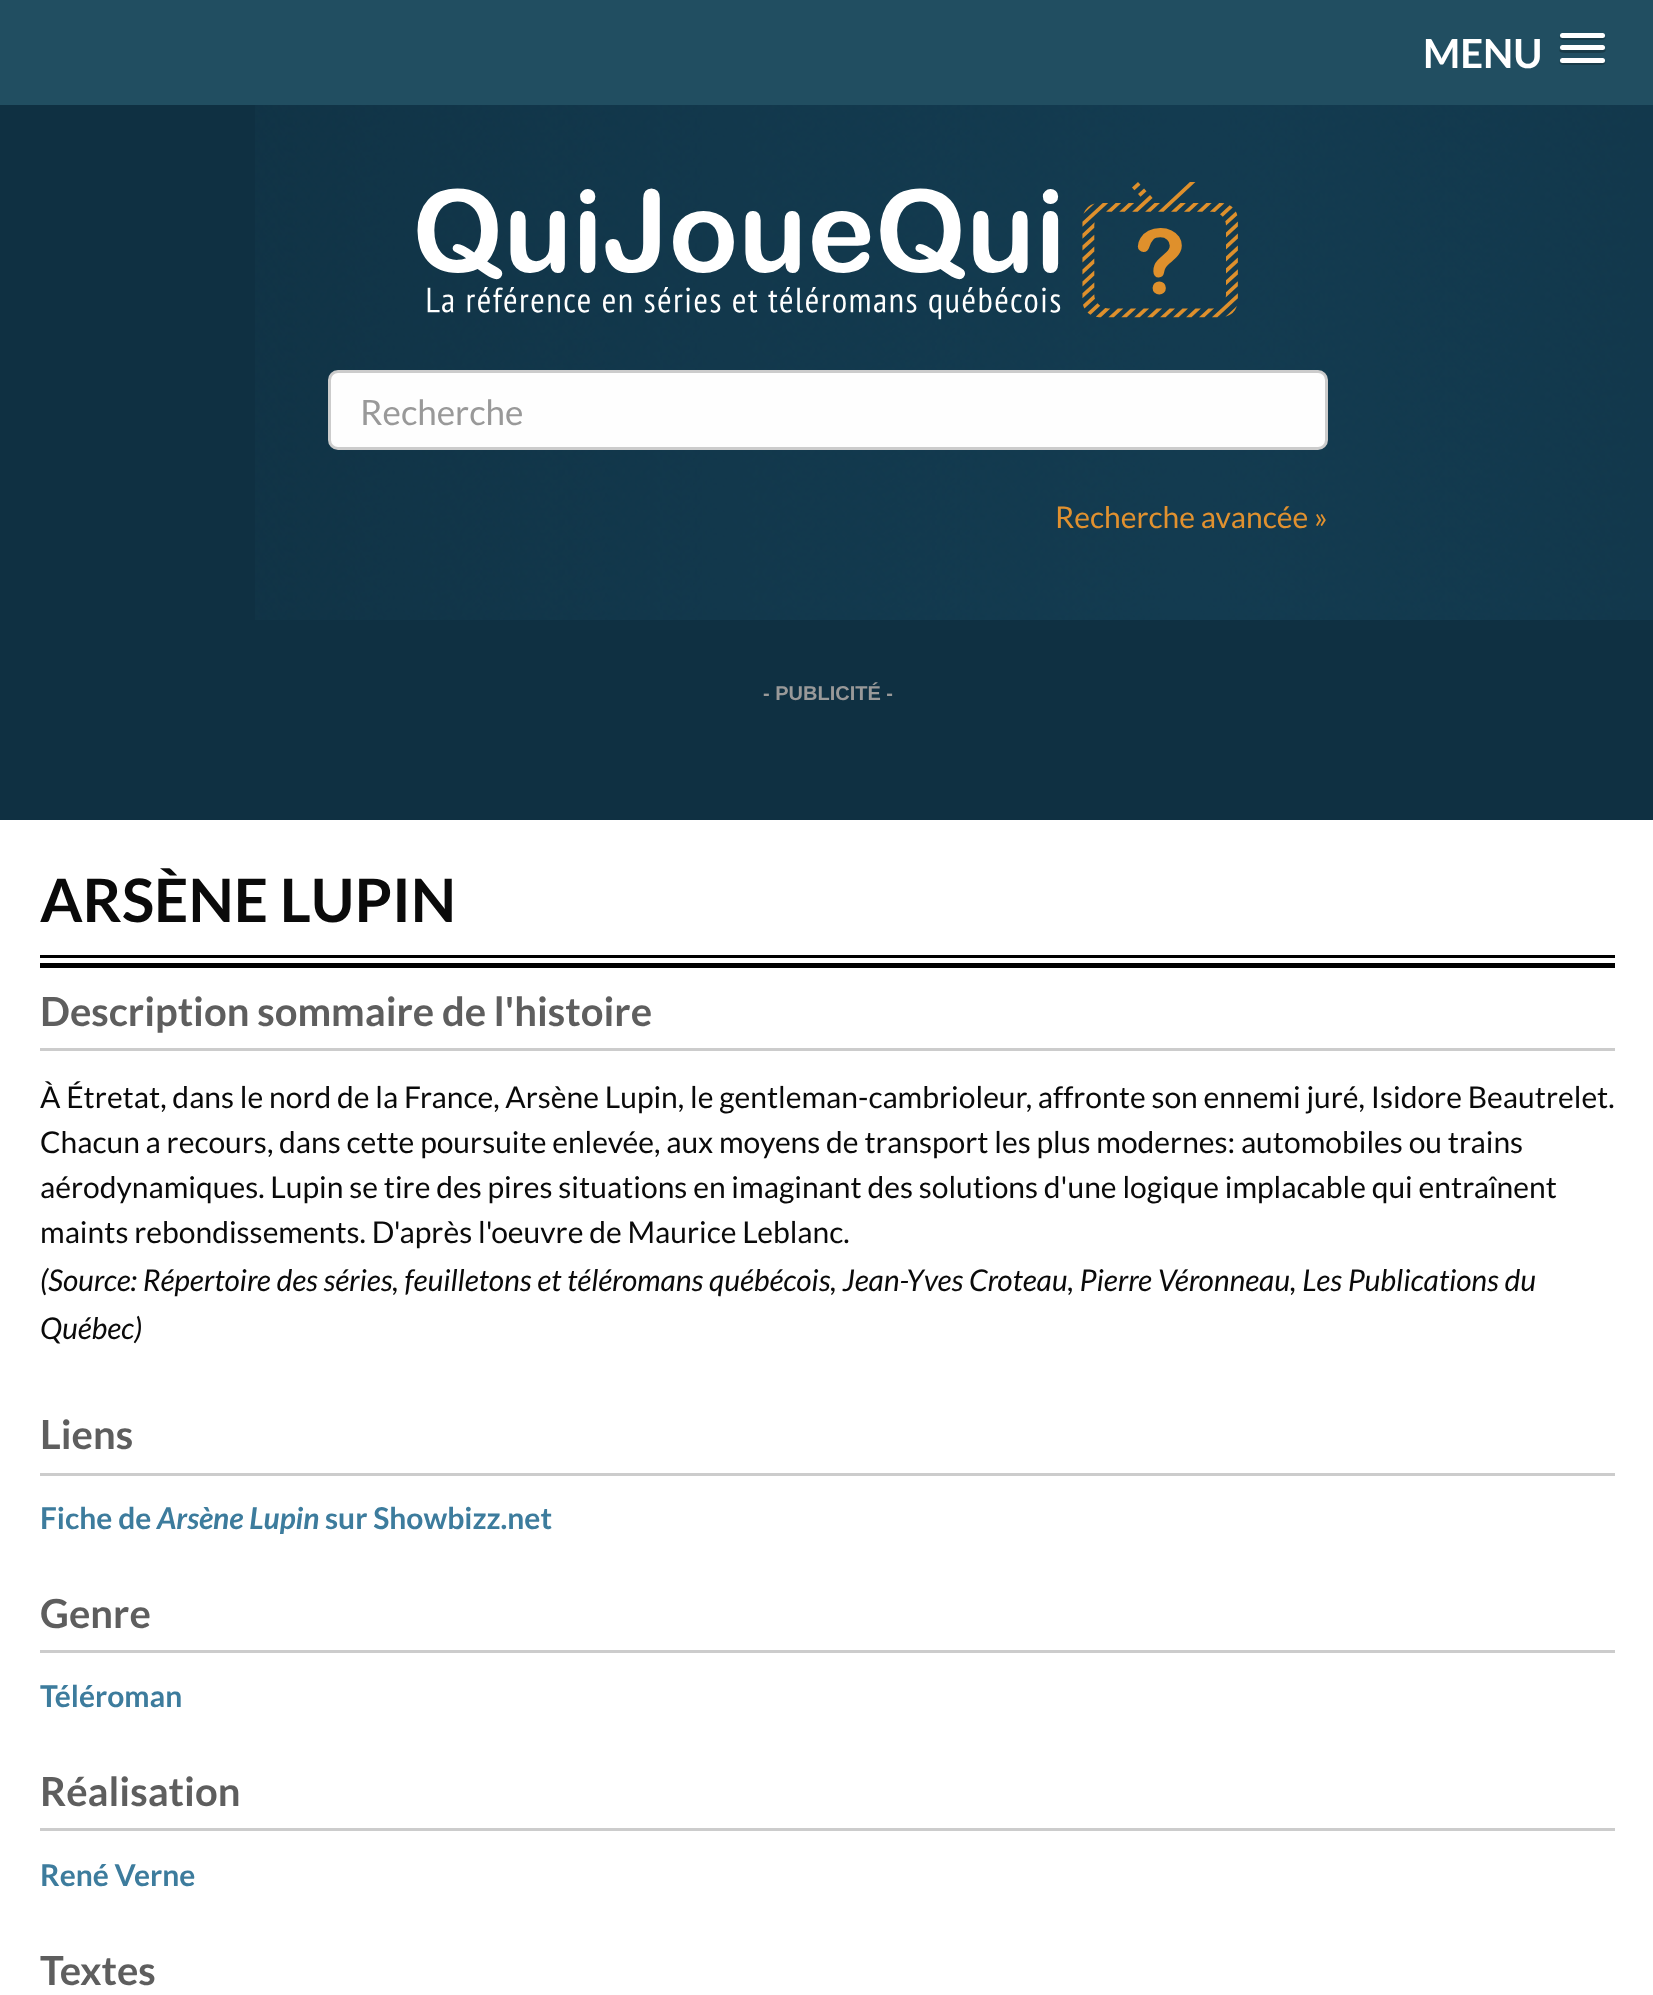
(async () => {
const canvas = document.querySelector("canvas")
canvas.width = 1653
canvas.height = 1995
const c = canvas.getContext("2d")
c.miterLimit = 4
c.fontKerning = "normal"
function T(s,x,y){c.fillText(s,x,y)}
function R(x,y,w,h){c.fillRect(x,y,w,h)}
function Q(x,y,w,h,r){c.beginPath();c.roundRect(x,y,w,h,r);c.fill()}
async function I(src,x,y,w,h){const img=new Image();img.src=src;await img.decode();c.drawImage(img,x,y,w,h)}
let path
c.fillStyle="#fff"
R(0,0,1653,1995)
c.fillStyle="#214e61"
R(0,0,1653,105)
c.font="bold 40px Lato"
c.fillStyle="#fff"
T("MENU",1423,68)
c.fillStyle="#193b49"
path = new Path2D("M1560 36c-3 5 9 4 9 4h27c0 0 12 1 9-4c-1 1-2 2-3 2h-40c0 0-1-1-2-2z")
c.fill(path)
c.fillStyle="#fff"
Q(1560,33,45,5,2.5)
c.fillStyle="#193b49"
path = new Path2D("M1560 49c-3 4 5 4 9 4h27c4 0 12 0 9-4l-2 1h-41z")
c.fill(path)
c.fillStyle="#fff"
Q(1560,45,45,5,2.5)
c.fillStyle="#193b49"
path = new Path2D("M1560 61c-3 5 9 4 9 4h27c0 0 12 1 9-4c-1 1-2 1-3 1h-40c0 0-1 0-2-1z")
c.fill(path)
c.fillStyle="#fff"
Q(1560,58,45,5,2.5)
c.fillStyle="#0f3042"
R(0,105,1653,715)
await I("1.png",255,105,1398,515)
await I("2.png",417,182,821,138)
c.fillStyle="#fefefe"
c.beginPath()
c.roundRect(329.5,371.5,997,77,8.5)
c.fill()
c.strokeStyle="#ccc"
c.lineWidth=3
c.stroke()
c.font="35px Lato"
c.fillStyle="#999"
T("Recherche",360,425)
c.font="30px Lato"
c.fillStyle="#e1912f"
T("Recherche avancée »",1055,528)
c.font="bold 20px Liberation Sans"
c.fillStyle="#999"
T("- PUBLICITÉ -",763,700)
c.font="bold 60px Lato"
c.fillStyle="#0a0a0a"
T("ARSÈNE LUPIN",40,922)
c.fillStyle="#000"
R(40,955,1575,3)
R(40,963,1575,5)
c.fillStyle="#ccc"
R(40,1048,1575,3)
c.font="bold 40px Lato"
c.fillStyle="#5e5e5e"
T("Description sommaire de l'histoire",40,1026)
c.font="30px Lato"
c.fillStyle="#0a0a0a"
T("À Étretat, dans le nord de la France, Arsène Lupin, le gentleman-cambrioleur, affronte son ennemi juré, Isidore Beautrelet.",40,1108)
T("Chacun a recours, dans cette poursuite enlevée, aux moyens de transport les plus modernes: automobiles ou trains",40,1153)
T("aérodynamiques. Lupin se tire des pires situations en imaginant des solutions d'une logique implacable qui entraînent",40,1198)
T("maints rebondissements. D'après l'oeuvre de Maurice Leblanc.",40,1243)
c.font="italic 30px Lato"
T("(Source: Répertoire des séries, feuilletons et téléromans québécois, Jean-Yves Croteau, Pierre Véronneau, Les Publications du",40,1291)
T("Québec)",40,1339)
c.fillStyle="#ccc"
R(40,1473,1575,3)
c.font="bold 40px Lato"
c.fillStyle="#5e5e5e"
T("Liens",40,1449)
c.font="bold 30px Lato"
c.fillStyle="#3d7c9d"
T("Fiche de",40,1529)
c.font="italic bold 30px Lato"
T("Arsène Lupin",157,1529)
c.font="bold 30px Lato"
T("sur Showbizz.net",325,1529)
c.fillStyle="#ccc"
R(40,1650,1575,3)
c.font="bold 40px Lato"
c.fillStyle="#5e5e5e"
T("Genre",40,1628)
c.font="bold 30px Lato"
c.fillStyle="#3d7c9d"
T("Téléroman",40,1707)
c.fillStyle="#ccc"
R(40,1828,1575,3)
c.font="bold 40px Lato"
c.fillStyle="#5e5e5e"
T("Réalisation",40,1806)
c.font="bold 30px Lato"
c.fillStyle="#3d7c9d"
T("René Verne",40,1886)
c.font="bold 40px Lato"
c.fillStyle="#5e5e5e"
T("Textes",40,1985)
})()
